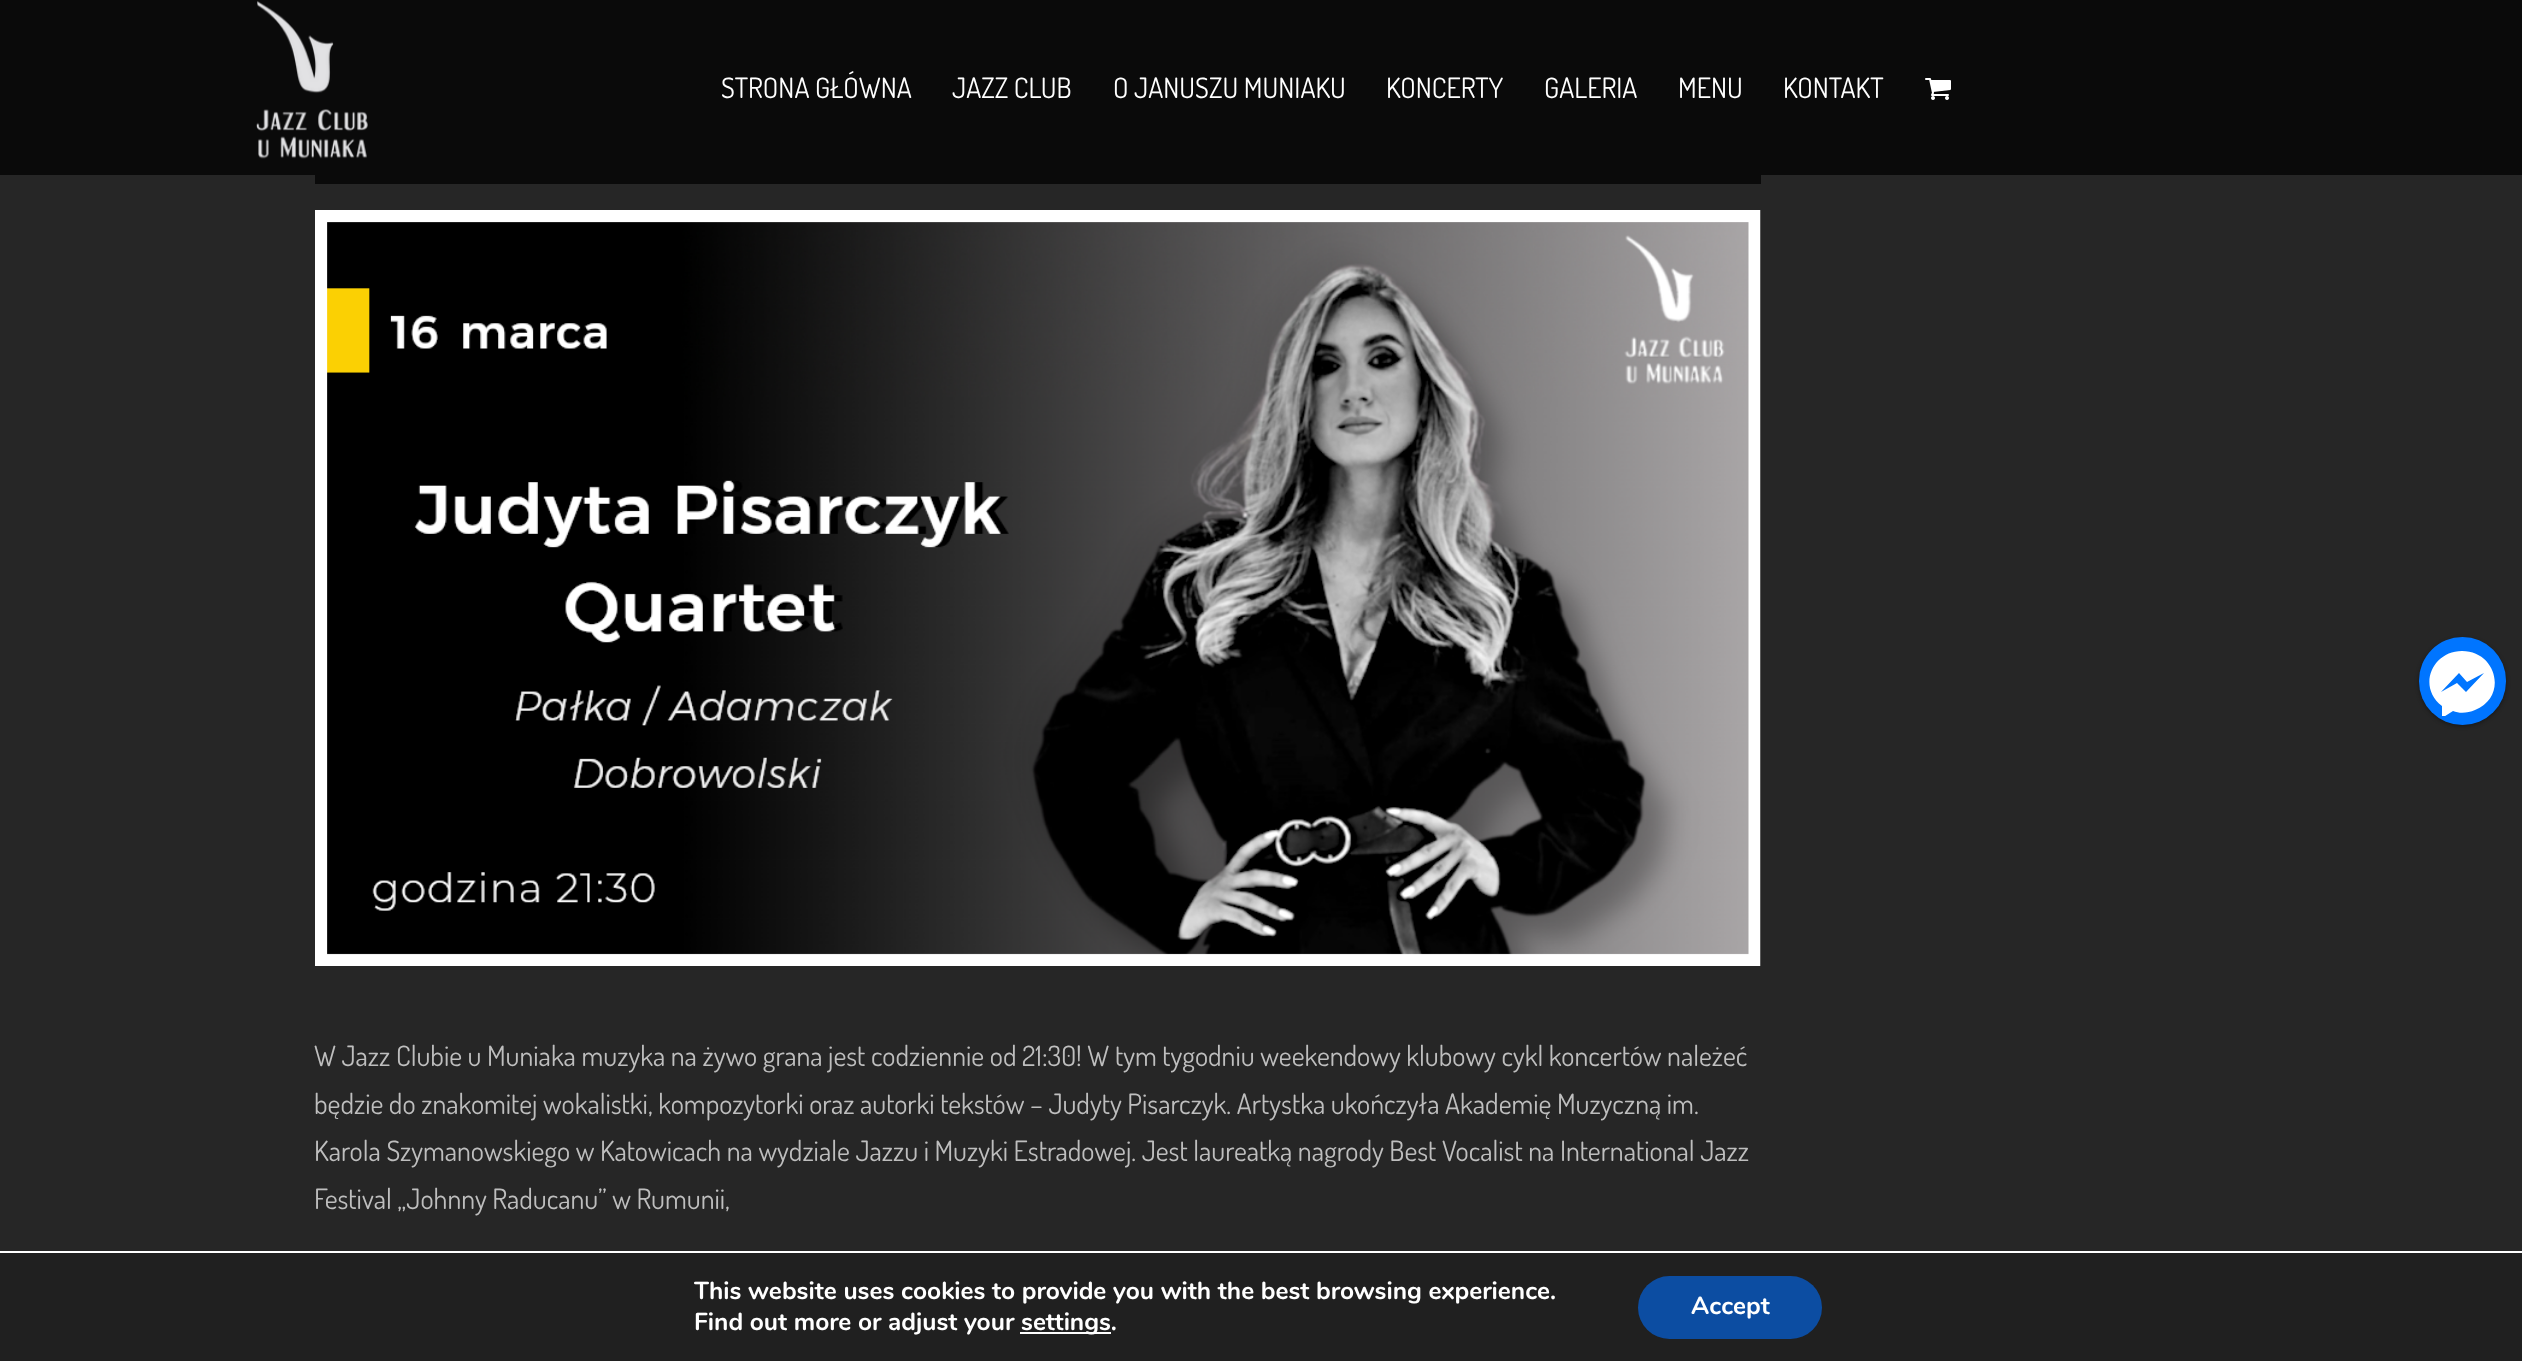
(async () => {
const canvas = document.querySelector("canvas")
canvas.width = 2522
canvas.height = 1361
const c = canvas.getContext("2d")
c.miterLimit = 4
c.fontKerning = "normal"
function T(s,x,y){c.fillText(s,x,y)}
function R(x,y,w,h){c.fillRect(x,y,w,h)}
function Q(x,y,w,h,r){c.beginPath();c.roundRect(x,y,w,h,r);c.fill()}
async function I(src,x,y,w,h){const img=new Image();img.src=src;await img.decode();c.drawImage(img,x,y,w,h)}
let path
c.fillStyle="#262626"
R(0,0,2522,1361)
c.fillStyle="#0a0a0a"
R(0,0,2522,175)
await I("1.png",256,1,112,158)
c.font="28px Dosis"
c.fillStyle="#fff"
T("STRONA GŁÓWNA",721,98)
T("JAZZ CLUB",952,98)
T("O JANUSZU MUNIAKU",1113,98)
T("KONCERTY",1386,98)
T("GALERIA",1544,98)
T("MENU",1678,98)
T("KONTAKT",1783,98)
await I("2.png",1925,78,26,22)
c.fillStyle="#0a0a0a"
R(315,175,1446,9)
await I("3.png",315,210,1446,756)
c.fillStyle="#bebebe"
T("W Jazz Clubie u Muniaka muzyka na żywo grana jest codziennie od 21:30! W tym tygodniu weekendowy klubowy cykl koncertów należeć",314,1066)
T("będzie do znakomitej wokalistki, kompozytorki oraz autorki tekstów – Judyty Pisarczyk. Artystka ukończyła Akademię Muzyczną im.",314,1114)
T("Karola Szymanowskiego w Katowicach na wydziale Jazzu i Muzyki Estradowej. Jest laureatką nagrody Best Vocalist na International Jazz",314,1161)
T("Festival „Johnny Raducanu” w Rumunii,",314,1209)
c.fillStyle="#00000066"
c.filter="blur(2px)"
c.beginPath()
c.roundRect(2419,639,87,87,43.5)
c.fill()
c.filter="none"
c.fillStyle="#0075ff"
Q(2419,637,87,88,43.5)
c.save()
c.beginPath()
c.rect(2429,651,67,65)
c.clip()
c.fillStyle="#fff"
path = new Path2D("M2462 651c-30 0-45 36-20 55v12l11-7c7 3 15 2 22-1c33-13 22-59-13-59zm4 41l-9-9l-16 9l18-19l8 9l17-9z")
c.fill(path)
c.restore()
c.fillStyle="#202020"
R(0,1253,2522,108)
c.fillStyle="#fff"
R(0,1251,2522,2)
c.font="bold 24.5px Nunito"
T("This website uses cookies to provide you with the best browsing experience.",694,1299)
T("Find out more or adjust your",694,1330)
R(1020,1332,91,2)
T("settings.",1021,1330)
c.fillStyle="#0c4da2"
Q(1638,1276,184,63,31.5)
c.fillStyle="#fff"
T("Accept",1691,1314)
})()
